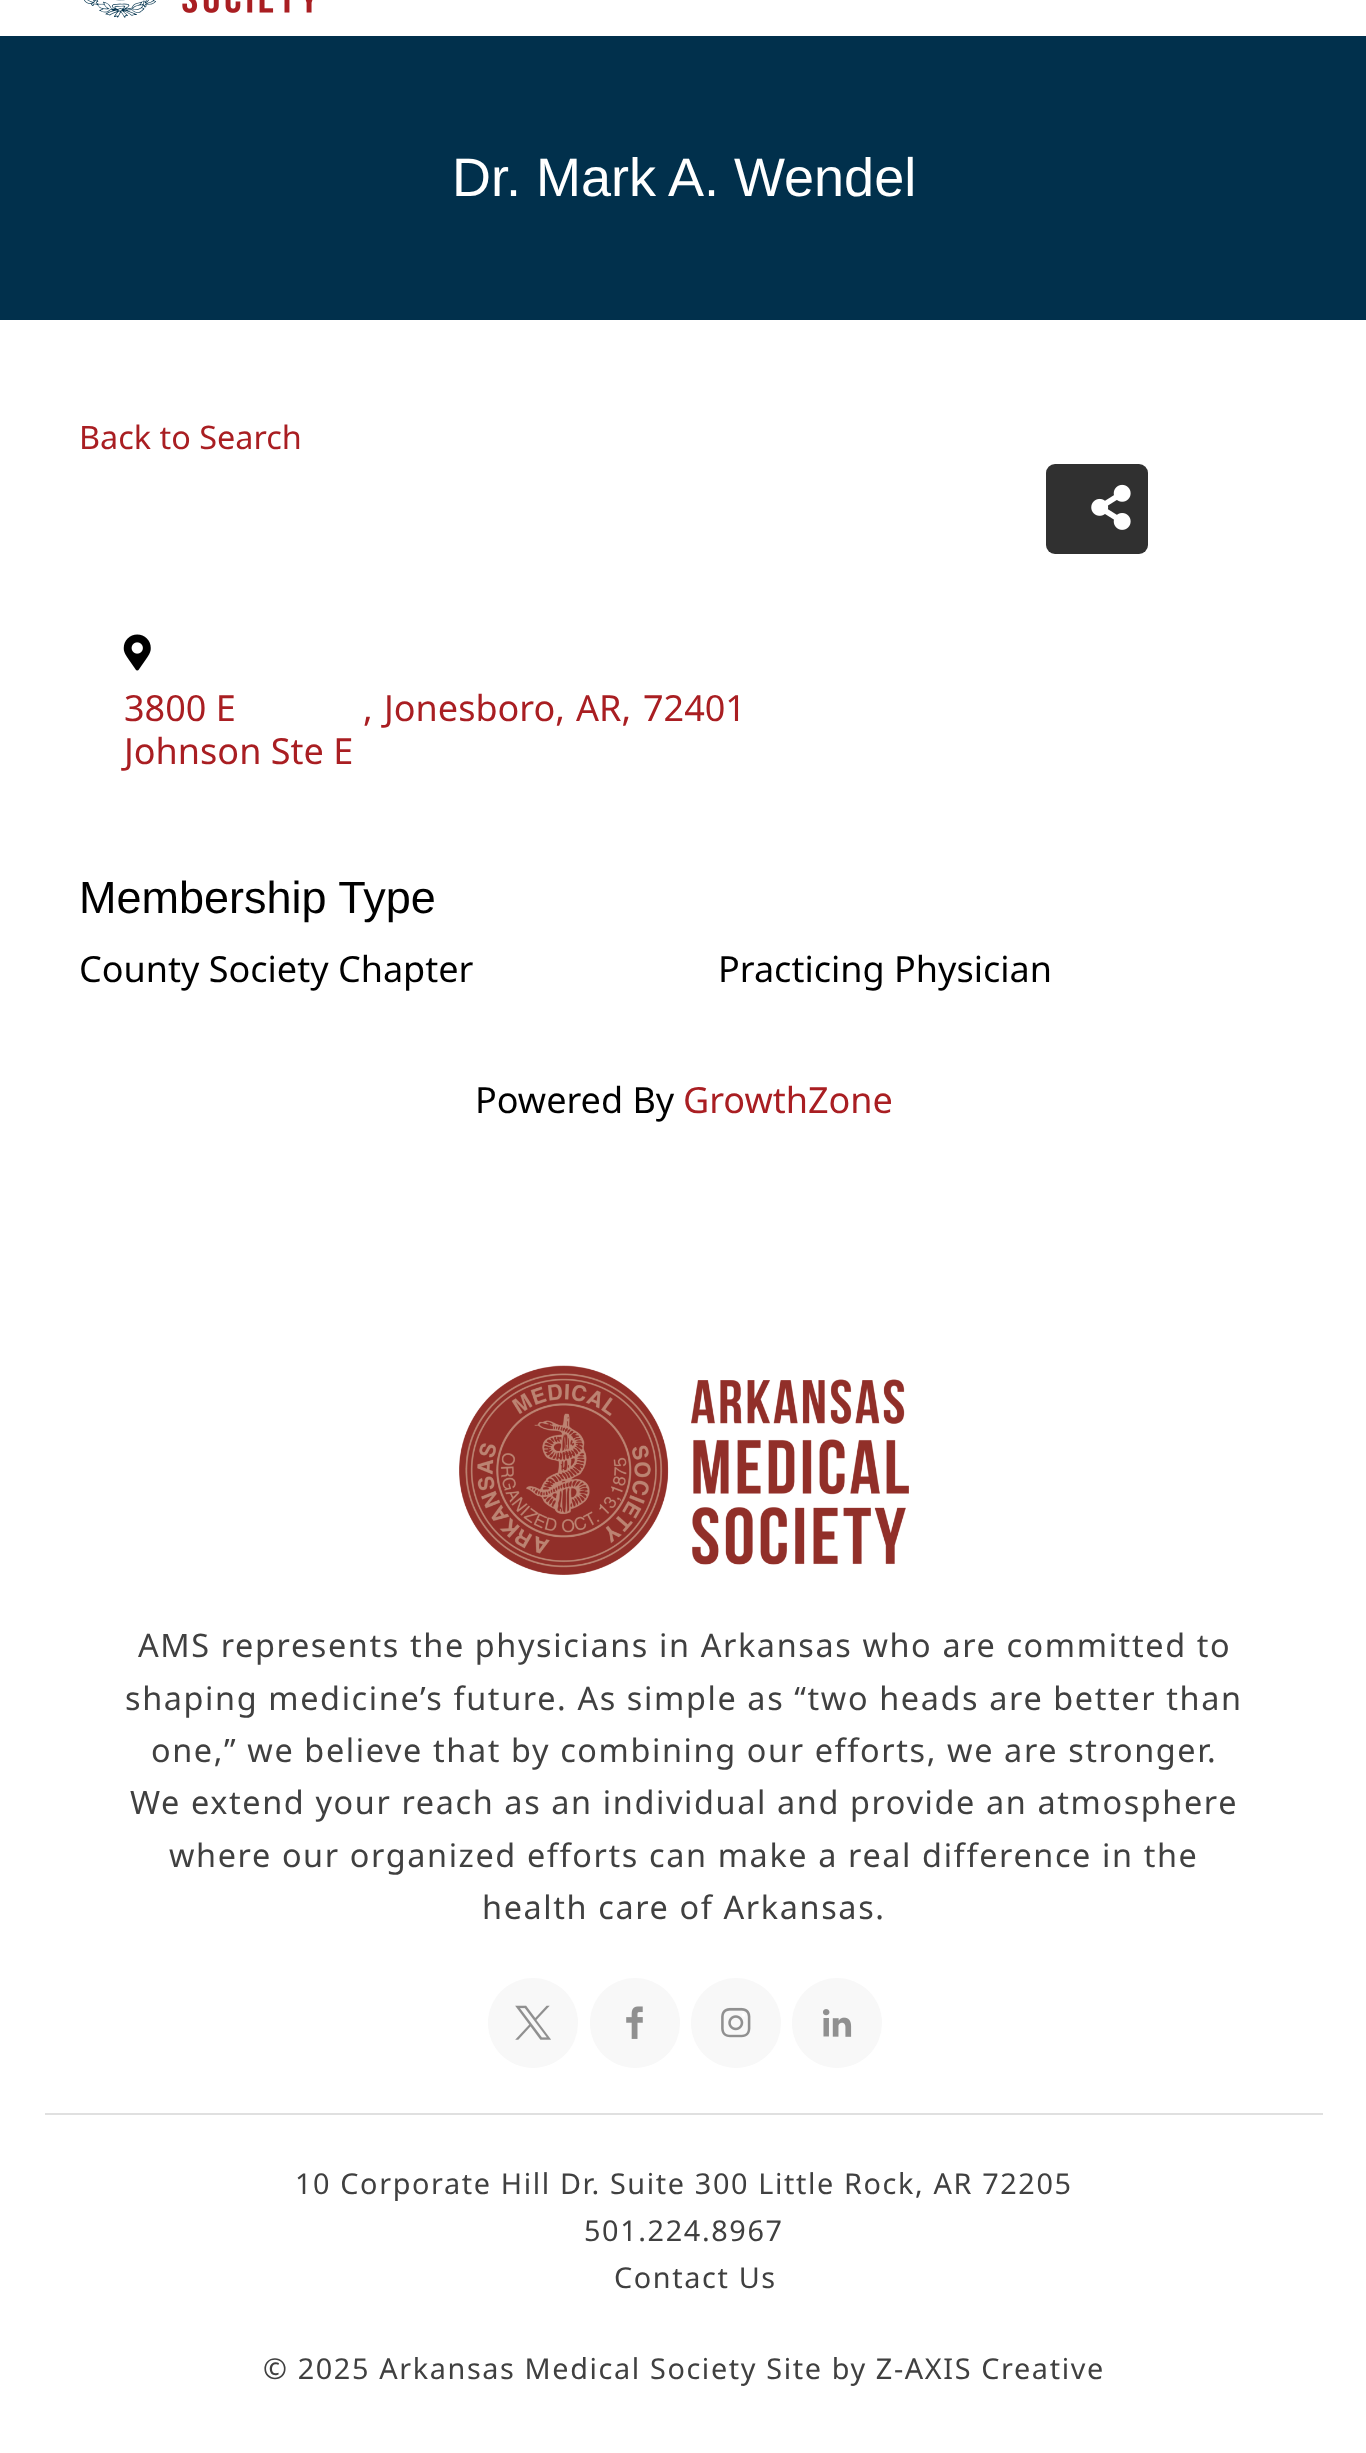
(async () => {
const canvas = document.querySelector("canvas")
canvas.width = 1366
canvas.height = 2453
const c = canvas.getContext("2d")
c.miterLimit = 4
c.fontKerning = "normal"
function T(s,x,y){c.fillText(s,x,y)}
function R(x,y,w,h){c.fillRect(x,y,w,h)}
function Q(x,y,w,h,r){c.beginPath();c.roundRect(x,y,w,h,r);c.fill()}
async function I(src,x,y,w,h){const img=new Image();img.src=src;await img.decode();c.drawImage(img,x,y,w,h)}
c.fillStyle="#fff"
R(0,0,1366,2453)
await I("1.png",84,0,229,18)
c.fillStyle="#01304c"
R(0,36,1366,284)
c.font="54px Liberation Sans"
c.fillStyle="#fff"
T("Dr. Mark A. Wendel",452,196)
c.font="32.4px Noto Sans"
c.fillStyle="#a91e22"
T("Back to Search",79,449)
c.fillStyle="#303030"
Q(1046,464,102,90,9)
await I("2.png",1091,484,40,46)
await I("3.png",123,634,28,37)
c.font="36px Noto Sans"
c.fillStyle="#a91e22"
T("3800 E",124,721)
T("Johnson Ste E",124,764)
T(",",363,721)
T("Jonesboro,",384,721)
T("AR,",576,721)
T("72401",643,721)
c.font="45px Liberation Sans"
c.fillStyle="#000"
T("Membership Type",79,913)
c.font="36px Noto Sans"
T("County Society Chapter",79,982)
T("Practicing Physician",718,982)
T("Powered By",475,1113)
c.fillStyle="#a91e22"
T("GrowthZone",683,1113)
await I("4.png",459,1365,450,210)
c.letterSpacing="1.62px"
c.font="32.4px Noto Sans"
c.fillStyle="#404040"
T("AMS represents the physicians in Arkansas who are committed to",138,1657)
T("shaping medicine’s future. As simple as “two heads are better than",125,1710)
T("one,” we believe that by combining our efforts, we are stronger.",151,1762)
T("We extend your reach as an individual and provide an atmosphere",130,1814)
T("where our organized efforts can make a real difference in the",169,1867)
T("health care of Arkansas.",482,1919)
c.fillStyle="#f8f8f8"
c.beginPath()
c.arc(533,2023,45,0,7)
c.fill()
await I("5.png",515,2005,36,35)
c.beginPath()
c.arc(635,2023,45,0,7)
c.fill()
await I("6.png",626,2006,17,33)
c.beginPath()
c.arc(736,2023,45,0,7)
c.fill()
await I("7.png",721,2007,30,31)
c.beginPath()
c.arc(837,2023,45,0,7)
c.fill()
await I("8.png",823,2009,29,28)
c.fillStyle="#e0e0e0"
R(45,2113,1278,2)
c.font="28.8px Noto Sans"
c.fillStyle="#404040"
T("10 Corporate Hill Dr. Suite 300 Little Rock, AR 72205",295,2194)
T("501.224.8967",584,2241)
T("Contact Us",614,2288)
T("© 2025 Arkansas Medical Society Site by Z-AXIS Creative",263,2379)
})()
